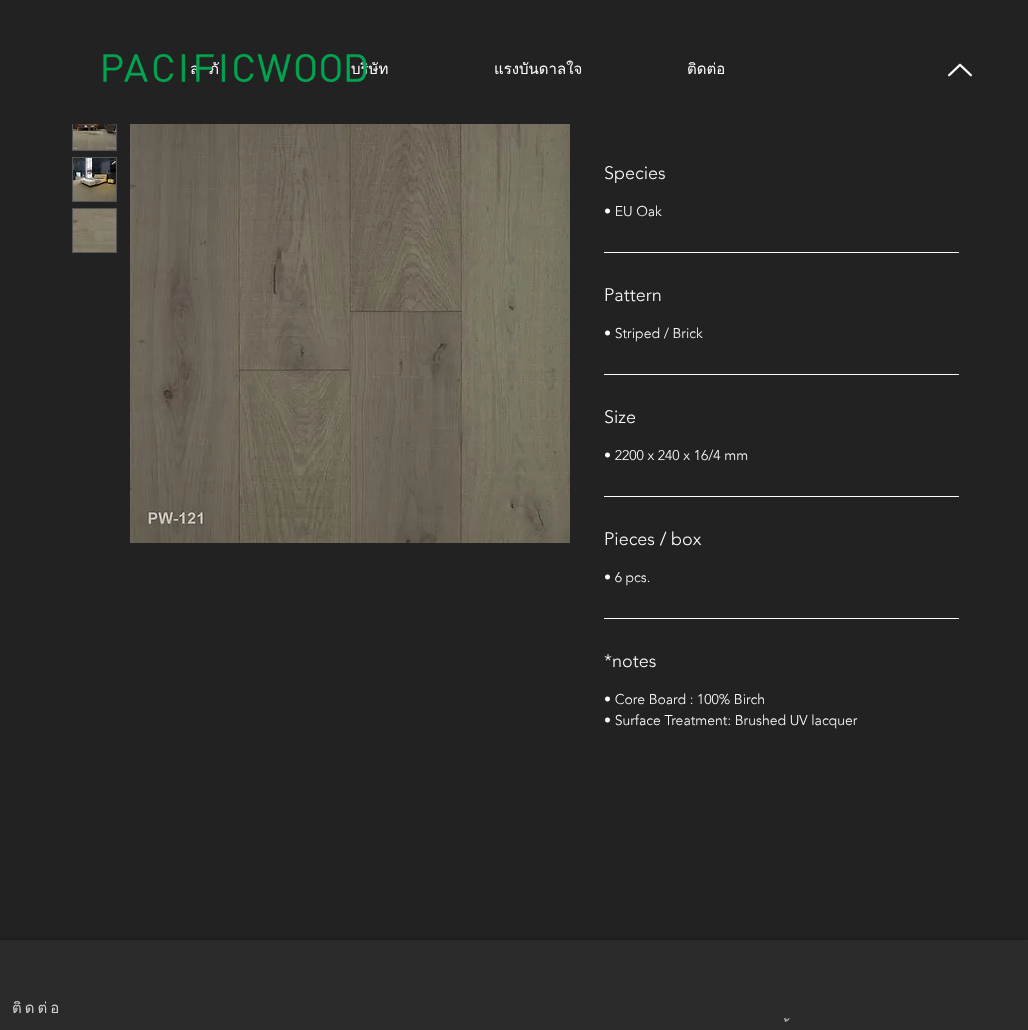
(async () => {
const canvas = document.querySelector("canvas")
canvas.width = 1028
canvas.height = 1030
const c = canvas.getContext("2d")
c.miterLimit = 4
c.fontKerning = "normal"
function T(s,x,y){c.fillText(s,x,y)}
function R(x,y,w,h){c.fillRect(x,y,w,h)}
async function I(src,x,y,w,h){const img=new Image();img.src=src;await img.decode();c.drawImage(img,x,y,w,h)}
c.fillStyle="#222"
R(0,0,1028,1030)
c.font="15px Loma"
c.fillStyle="#fff"
T("ล",190,74)
T("ภั",209,74)
T("บริษัท",351,74)
await I("1.png",103,53,264,30)
T("แรงบันดาลใจ",494,74)
T("ติดต่อ",687,74)
await I("2.png",948,63,24,14)
c.strokeStyle="#555"
c.strokeRect(72.5,106.5,44,44)
c.fillStyle="#222"
R(72,106,45,18)
await I("3.png",73,124,43,26)
c.strokeRect(72.5,157.5,44,44)
await I("4.png",73,158,43,43)
c.strokeRect(72.5,208.5,44,44)
await I("5.png",73,209,43,43)
await I("6.png",130,124,440,419)
c.fillStyle="#fff"
R(604,252,355,1)
c.font="300 18px 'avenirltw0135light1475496'"
T("Species",604,179)
c.font="300 14px 'avenirltw0135light1475496'"
T("• EU Oak",604,216)
R(604,374,355,1)
c.font="300 18px 'avenirltw0135light1475496'"
T("Pattern",604,301)
c.font="300 14px 'avenirltw0135light1475496'"
T("• Striped / Brick",604,338)
R(604,496,355,1)
c.font="300 18px 'avenirltw0135light1475496'"
T("Size",604,423)
c.font="300 14px 'avenirltw0135light1475496'"
T("• 2200 x 240 x 16/4 mm",604,460)
R(604,618,355,1)
c.font="300 18px 'avenirltw0135light1475496'"
T("Pieces / box",604,545)
c.font="300 14px 'avenirltw0135light1475496'"
T("• 6 pcs.",604,582)
c.font="300 18px 'avenirltw0135light1475496'"
T("*notes",604,667)
c.font="300 14px 'avenirltw0135light1475496'"
T("• Core Board : 100% Birch",604,704)
T("• Surface Treatment: Brushed UV lacquer",604,725)
c.fillStyle="#00000099"
c.filter="blur(2px)"
c.beginPath()
c.rect(0,941,1028,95)
c.fill()
c.filter="none"
c.fillStyle="#2b2b2b"
R(0,940,1028,90)
c.letterSpacing="3px"
c.font="15px Loma"
c.fillStyle="#d5d5d5"
T("ติดต่อ",12,1013)
T("้",789,1034)
})()
